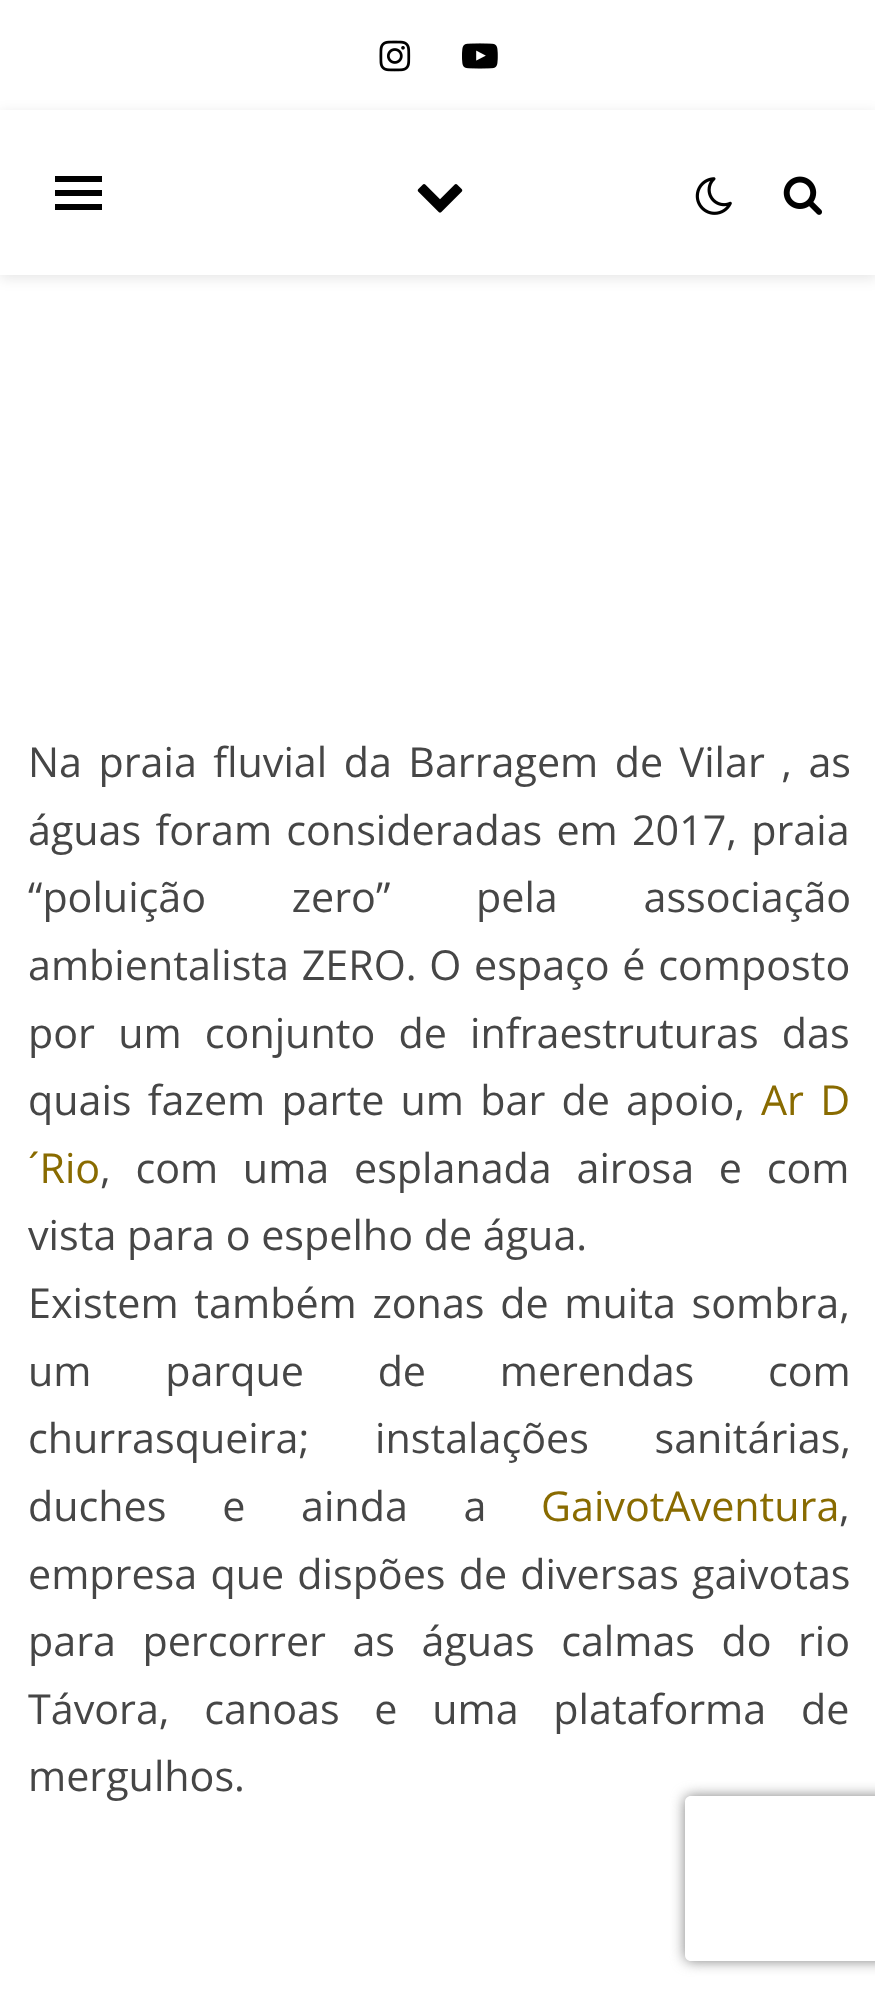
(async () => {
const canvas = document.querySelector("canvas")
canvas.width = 875
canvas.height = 1998
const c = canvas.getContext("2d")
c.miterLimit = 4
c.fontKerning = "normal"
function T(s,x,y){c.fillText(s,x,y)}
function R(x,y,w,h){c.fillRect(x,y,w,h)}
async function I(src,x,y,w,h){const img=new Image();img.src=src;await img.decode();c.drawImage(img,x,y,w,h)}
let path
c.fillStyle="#fff"
R(0,0,875,1998)
await I("1.png",379,40,32,32)
await I("2.png",462,43,36,26)
c.fillStyle="#0000001a"
c.filter="blur(7px)"
c.beginPath()
c.rect(0,113,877,165)
c.fill()
c.filter="none"
c.fillStyle="#fff"
R(0,110,875,165)
c.fillStyle="#000"
R(55,176,47,6)
R(55,190,47,6)
R(55,204,47,6)
await I("3.png",417,184,46,29)
await I("4.png",695,177,37,38)
await I("5.png",783,176,39,39)
c.wordSpacing="5.75px"
c.font="41.25px Open Sans"
c.fillStyle="#464646"
T("Na praia fluvial da Barragem de Vilar , as",28,777)
c.wordSpacing="3.5px"
T("águas foram consideradas em 2017, praia",28,845)
c.wordSpacing="75px"
T("“poluição zero” pela associação",28,912)
c.wordSpacing="2px"
T("ambientalista ZERO. O espaço é composto",28,980)
c.wordSpacing="12.5px"
T("por um conjunto de infraestruturas das",28,1048)
c.wordSpacing="5.5px"
T("quais fazem parte um bar de apoio,",28,1115)
c.fillStyle="#896b00"
T("Ar D",761,1115)
c.wordSpacing="0px"
T("´Rio",28,1183)
c.wordSpacing="14px"
c.fillStyle="#464646"
T(", com uma esplanada airosa e com",100,1183)
c.wordSpacing="0px"
T("vista para o espelho de água.",28,1250)
c.wordSpacing="5px"
T("Existem também zonas de muita sombra,",28,1318)
c.wordSpacing="63px"
T("um parque de merendas com",28,1386)
c.wordSpacing="55px"
T("churrasqueira; instalações sanitárias,",28,1453)
c.wordSpacing="45px"
T("duches e ainda a",28,1521)
c.wordSpacing="0px"
c.fillStyle="#896b00"
T("GaivotAventura",541,1521)
c.fillStyle="#464646"
T(",",839,1521)
c.wordSpacing="2.5px"
T("empresa que dispões de diversas gaivotas",28,1589)
c.wordSpacing="15.75px"
T("para percorrer as águas calmas do rio",28,1656)
c.wordSpacing="24px"
T("Távora, canoas e uma plataforma de",28,1724)
c.wordSpacing="0px"
T("mergulhos.",28,1791)
c.save()
path = new Path2D("M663 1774h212v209h-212zm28 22h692c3.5 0 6 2.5 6 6v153c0 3.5-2.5 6-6 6h-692c-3.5 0-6-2.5-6-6v-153c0-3.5 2.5-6 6-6z")
c.clip(path,"evenodd")
c.fillStyle="#808080"
c.filter="blur(7px)"
c.beginPath()
c.roundRect(685,1796,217,165,6)
c.fill()
c.filter="none"
c.restore()
})()
